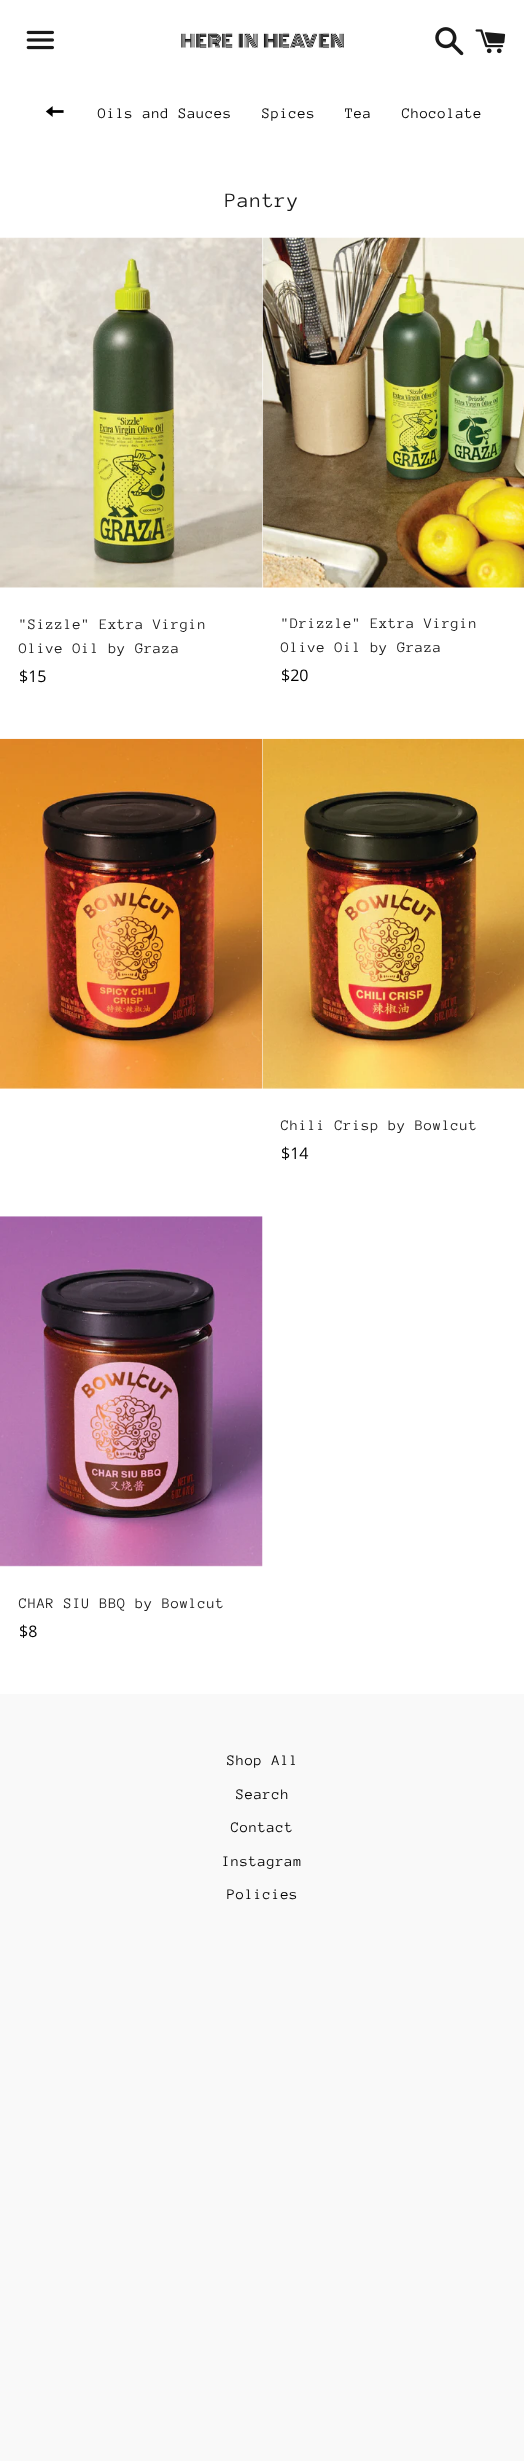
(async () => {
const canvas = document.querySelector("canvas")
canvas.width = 524
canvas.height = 2461
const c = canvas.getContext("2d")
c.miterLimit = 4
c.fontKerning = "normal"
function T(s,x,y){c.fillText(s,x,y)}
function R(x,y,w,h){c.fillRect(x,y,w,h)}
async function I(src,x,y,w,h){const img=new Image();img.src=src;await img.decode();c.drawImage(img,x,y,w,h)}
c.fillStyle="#f9f9f9"
R(0,0,524,2461)
c.fillStyle="#fff"
R(0,0,524,1694)
await I("1.png",26,30,28,20)
await I("2.png",181,32,163,17)
await I("3.png",435,27,29,29)
await I("4.png",475,29,31,25)
await I("5.png",45,106,19,11)
c.letterSpacing="0.75px"
c.font="15px Anonymous Pro"
c.fillStyle="#000"
T("Oils and Sauces",98,118)
T("Spices",262,118)
T("Tea",345,118)
T("Chocolate",402,118)
c.letterSpacing="1px"
c.font="21px Anonymous Pro"
c.fillStyle="#1a1a1a"
T("Pantry",225,207)
await I("6.png",0,237,263,351)
c.letterSpacing="0.75px"
c.font="15px Anonymous Pro"
T("\"Sizzle\" Extra Virgin",19,629)
T("Olive Oil by Graza",19,653)
c.letterSpacing="0px"
c.font="16px Open Sans"
c.fillStyle="#000"
T("$15",19,682)
await I("7.png",262,237,262,351)
c.letterSpacing="0.75px"
c.font="15px Anonymous Pro"
c.fillStyle="#1a1a1a"
T("\"Drizzle\" Extra Virgin",281,628)
T("Olive Oil by Graza",281,652)
c.letterSpacing="0px"
c.font="16px Open Sans"
c.fillStyle="#000"
T("$20",281,681)
await I("8.png",0,738,263,351)
await I("9.png",262,738,262,351)
c.letterSpacing="0.75px"
c.font="15px Anonymous Pro"
c.fillStyle="#1a1a1a"
T("Chili Crisp by Bowlcut",281,1130)
c.letterSpacing="0px"
c.font="16px Open Sans"
c.fillStyle="#000"
T("$14",281,1159)
await I("10.png",0,1216,263,351)
c.letterSpacing="0.75px"
c.font="15px Anonymous Pro"
c.fillStyle="#1a1a1a"
T("CHAR SIU BBQ by Bowlcut",19,1608)
c.letterSpacing="0px"
c.font="16px Open Sans"
c.fillStyle="#000"
T("$8",19,1637)
c.letterSpacing="0.75px"
c.font="15px Anonymous Pro"
T("Shop All",227,1765)
T("Search",236,1799)
T("Contact",231,1832)
T("Instagram",222,1866)
T("Policies",227,1899)
})()
